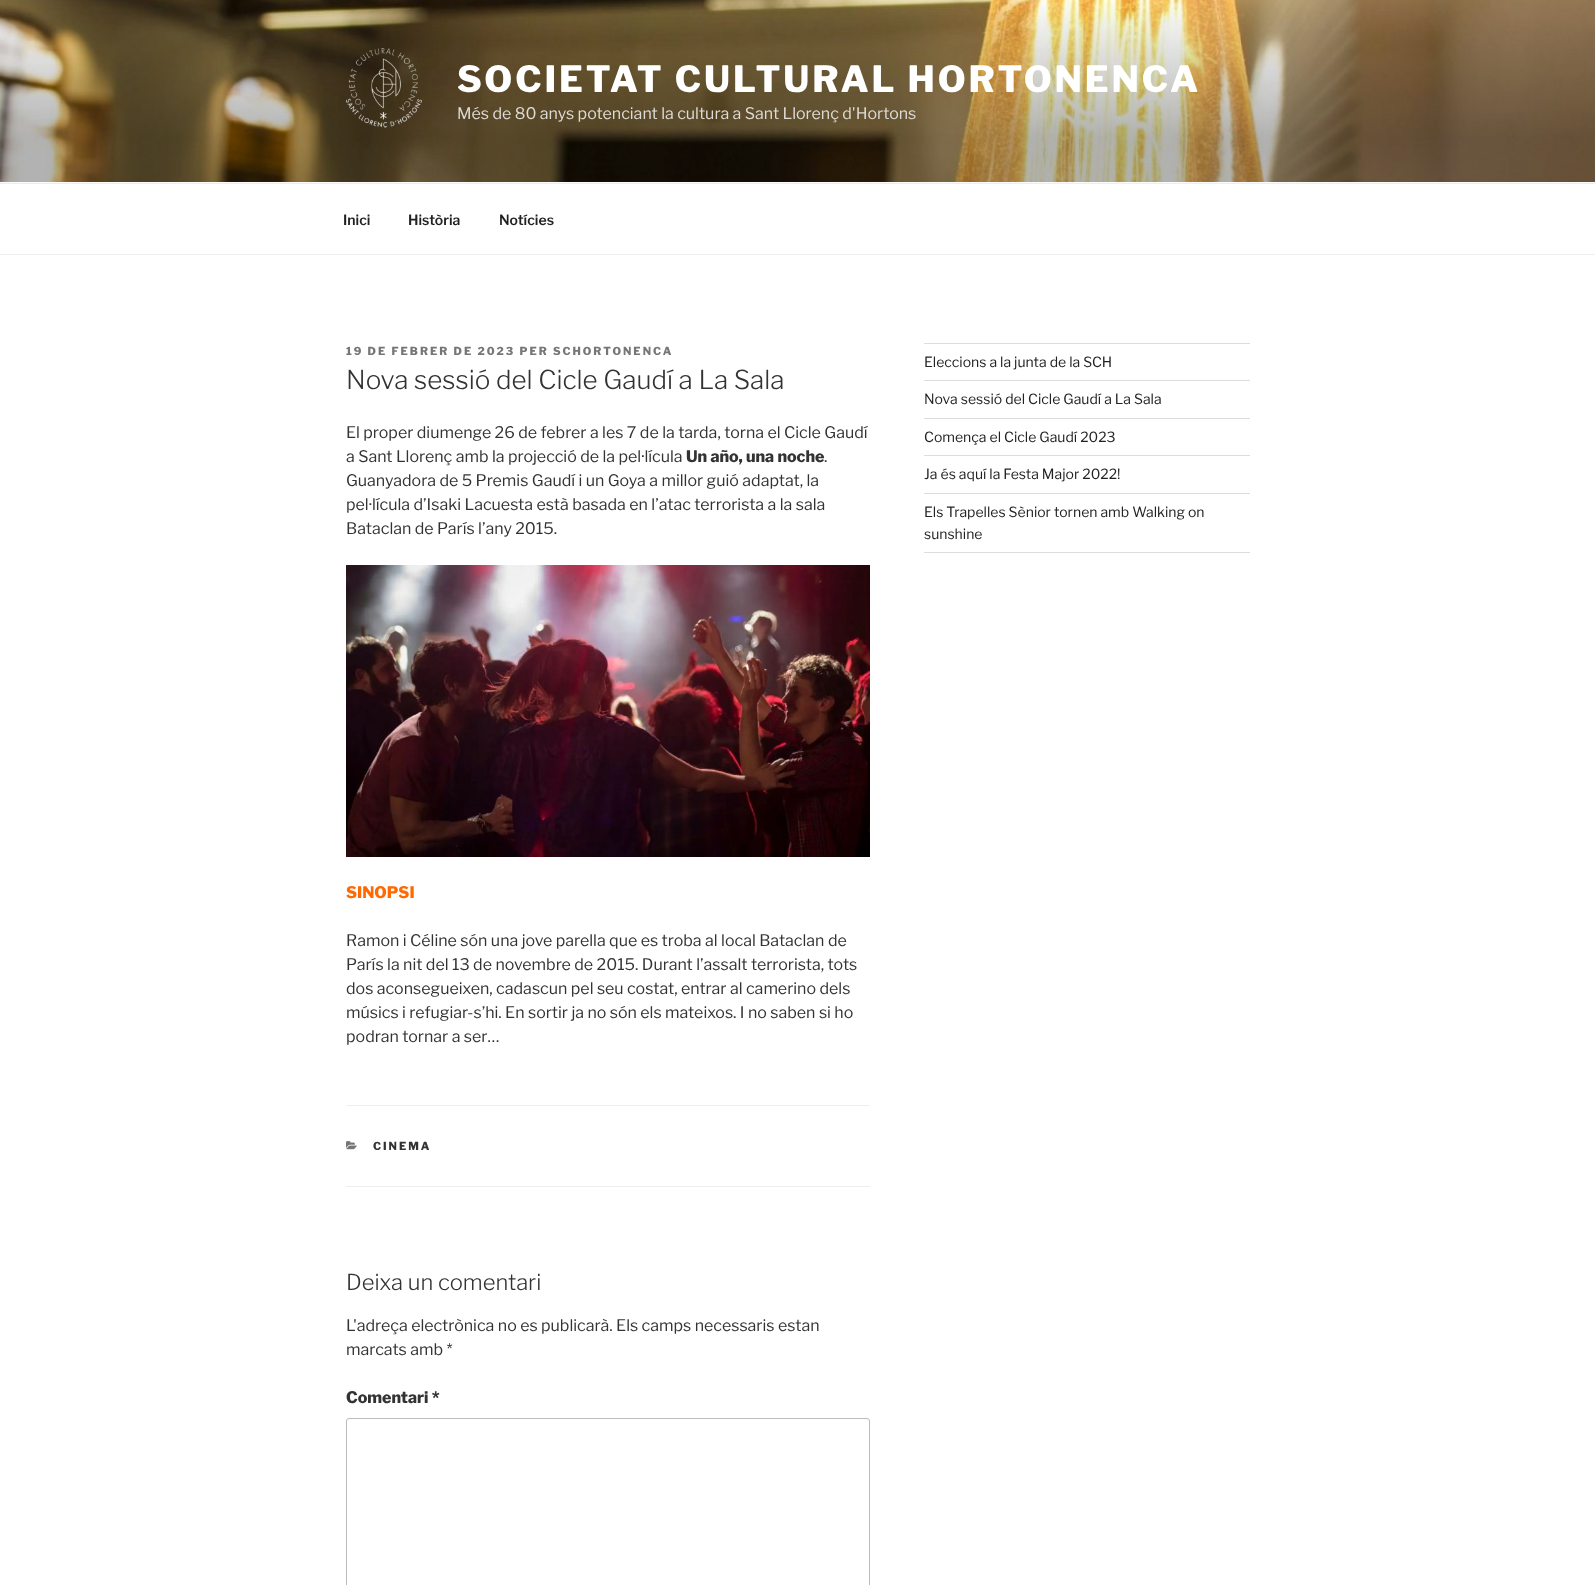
(async () => {
const canvas = document.querySelector("canvas")
canvas.width = 1595
canvas.height = 1585
const c = canvas.getContext("2d")
c.miterLimit = 4
c.fontKerning = "normal"
function T(s,x,y){c.fillText(s,x,y)}
function R(x,y,w,h){c.fillRect(x,y,w,h)}
async function I(src,x,y,w,h){const img=new Image();img.src=src;await img.decode();c.drawImage(img,x,y,w,h)}
c.fillStyle="#fff"
R(0,0,1595,1585)
c.fillStyle="#fafafa"
R(0,182,1595,1)
await I("1.png",0,0,1595,182)
await I("2.png",346,48,76,80)
c.letterSpacing="2.9px"
c.font="800 36px Libre Franklin"
c.fillStyle="#fff"
T("SOCIETAT CULTURAL HORTONENCA",457,92)
c.letterSpacing="0px"
c.font="16px Libre Franklin"
c.fillStyle="#dedbd5"
T("Més de 80 anys potenciant la cultura a Sant Llorenç d'Hortons",457,119)
c.fillStyle="#eee"
R(0,183,1595,1)
R(0,254,1595,1)
c.font="600 14px Libre Franklin"
c.fillStyle="#222"
T("Inici",343,225)
T("Història",408,225)
T("Notícies",499,225)
c.letterSpacing="2px"
c.font="800 11px Libre Franklin"
c.fillStyle="#767676"
T("19 DE FEBRER DE 2023 PER SCHORTONENCA",346,355)
c.letterSpacing="0px"
c.font="300 26px Libre Franklin"
c.fillStyle="#333"
T("Nova sessió del Cicle Gaudí a La Sala",346,389)
c.font="16px Libre Franklin"
T("El proper diumenge 26 de febrer a les 7 de la tarda, torna el Cicle Gaudí",346,438)
T("a Sant Llorenç amb la projecció de la pel·lícula",346,462)
c.font="800 16px Libre Franklin"
T("Un año, una noche",686,462)
c.font="16px Libre Franklin"
T(".",824,462)
T("Guanyadora de 5 Premis Gaudí i un Goya a millor guió adaptat, la",346,486)
T("pel·lícula d’Isaki Lacuesta està basada en l’atac terrorista a la sala",346,510)
T("Bataclan de París l’any 2015.",346,534)
await I("3.png",346,565,524,292)
c.font="800 16px Libre Franklin"
c.fillStyle="#ff6900"
T("SINOPSI",346,898)
c.font="16px Libre Franklin"
c.fillStyle="#333"
T("Ramon i Céline són una jove parella que es troba al local Bataclan de",346,946)
T("París la nit del 13 de novembre de 2015. Durant l’assalt terrorista, tots",346,970)
T("dos aconsegueixen, cadascun pel seu costat, entrar al camerino dels",346,994)
T("músics i refugiar-s’hi. En sortir ja no són els mateixos. I no saben si ho",346,1018)
T("podran tornar a ser…",346,1042)
c.fillStyle="#eee"
R(346,1105,524,1)
R(346,1186,524,1)
await I("4.png",346,1141,11,9)
c.letterSpacing="2px"
c.font="800 11px Libre Franklin"
c.fillStyle="#333"
T("CINEMA",373,1150)
c.letterSpacing="0px"
c.font="300 22px Libre Franklin"
T("Deixa un comentari",346,1290)
c.font="16px Libre Franklin"
T("L'adreça electrònica no es publicarà. Els camps necessaris estan",346,1331)
T("marcats amb *",346,1355)
c.font="800 16px Libre Franklin"
T("Comentari *",346,1403)
c.beginPath()
c.roundRect(346.5,1418.5,523,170,2.5)
c.strokeStyle="#bbb"
c.stroke()
c.fillStyle="#ddd"
R(924,343,326,1)
R(924,380,326,1)
c.font="14px Libre Franklin"
c.fillStyle="#222"
T("Eleccions a la junta de la SCH",924,367)
c.fillStyle="#ddd"
R(924,418,326,1)
c.fillStyle="#222"
T("Nova sessió del Cicle Gaudí a La Sala",924,404)
c.fillStyle="#ddd"
R(924,455,326,1)
c.fillStyle="#222"
T("Comença el Cicle Gaudí 2023",924,442)
c.fillStyle="#ddd"
R(924,493,326,1)
c.fillStyle="#222"
T("Ja és aquí la Festa Major 2022!",924,479)
c.fillStyle="#ddd"
R(924,552,326,1)
c.fillStyle="#222"
T("Els Trapelles Sènior tornen amb Walking on",924,517)
T("sunshine",924,539)
})()
